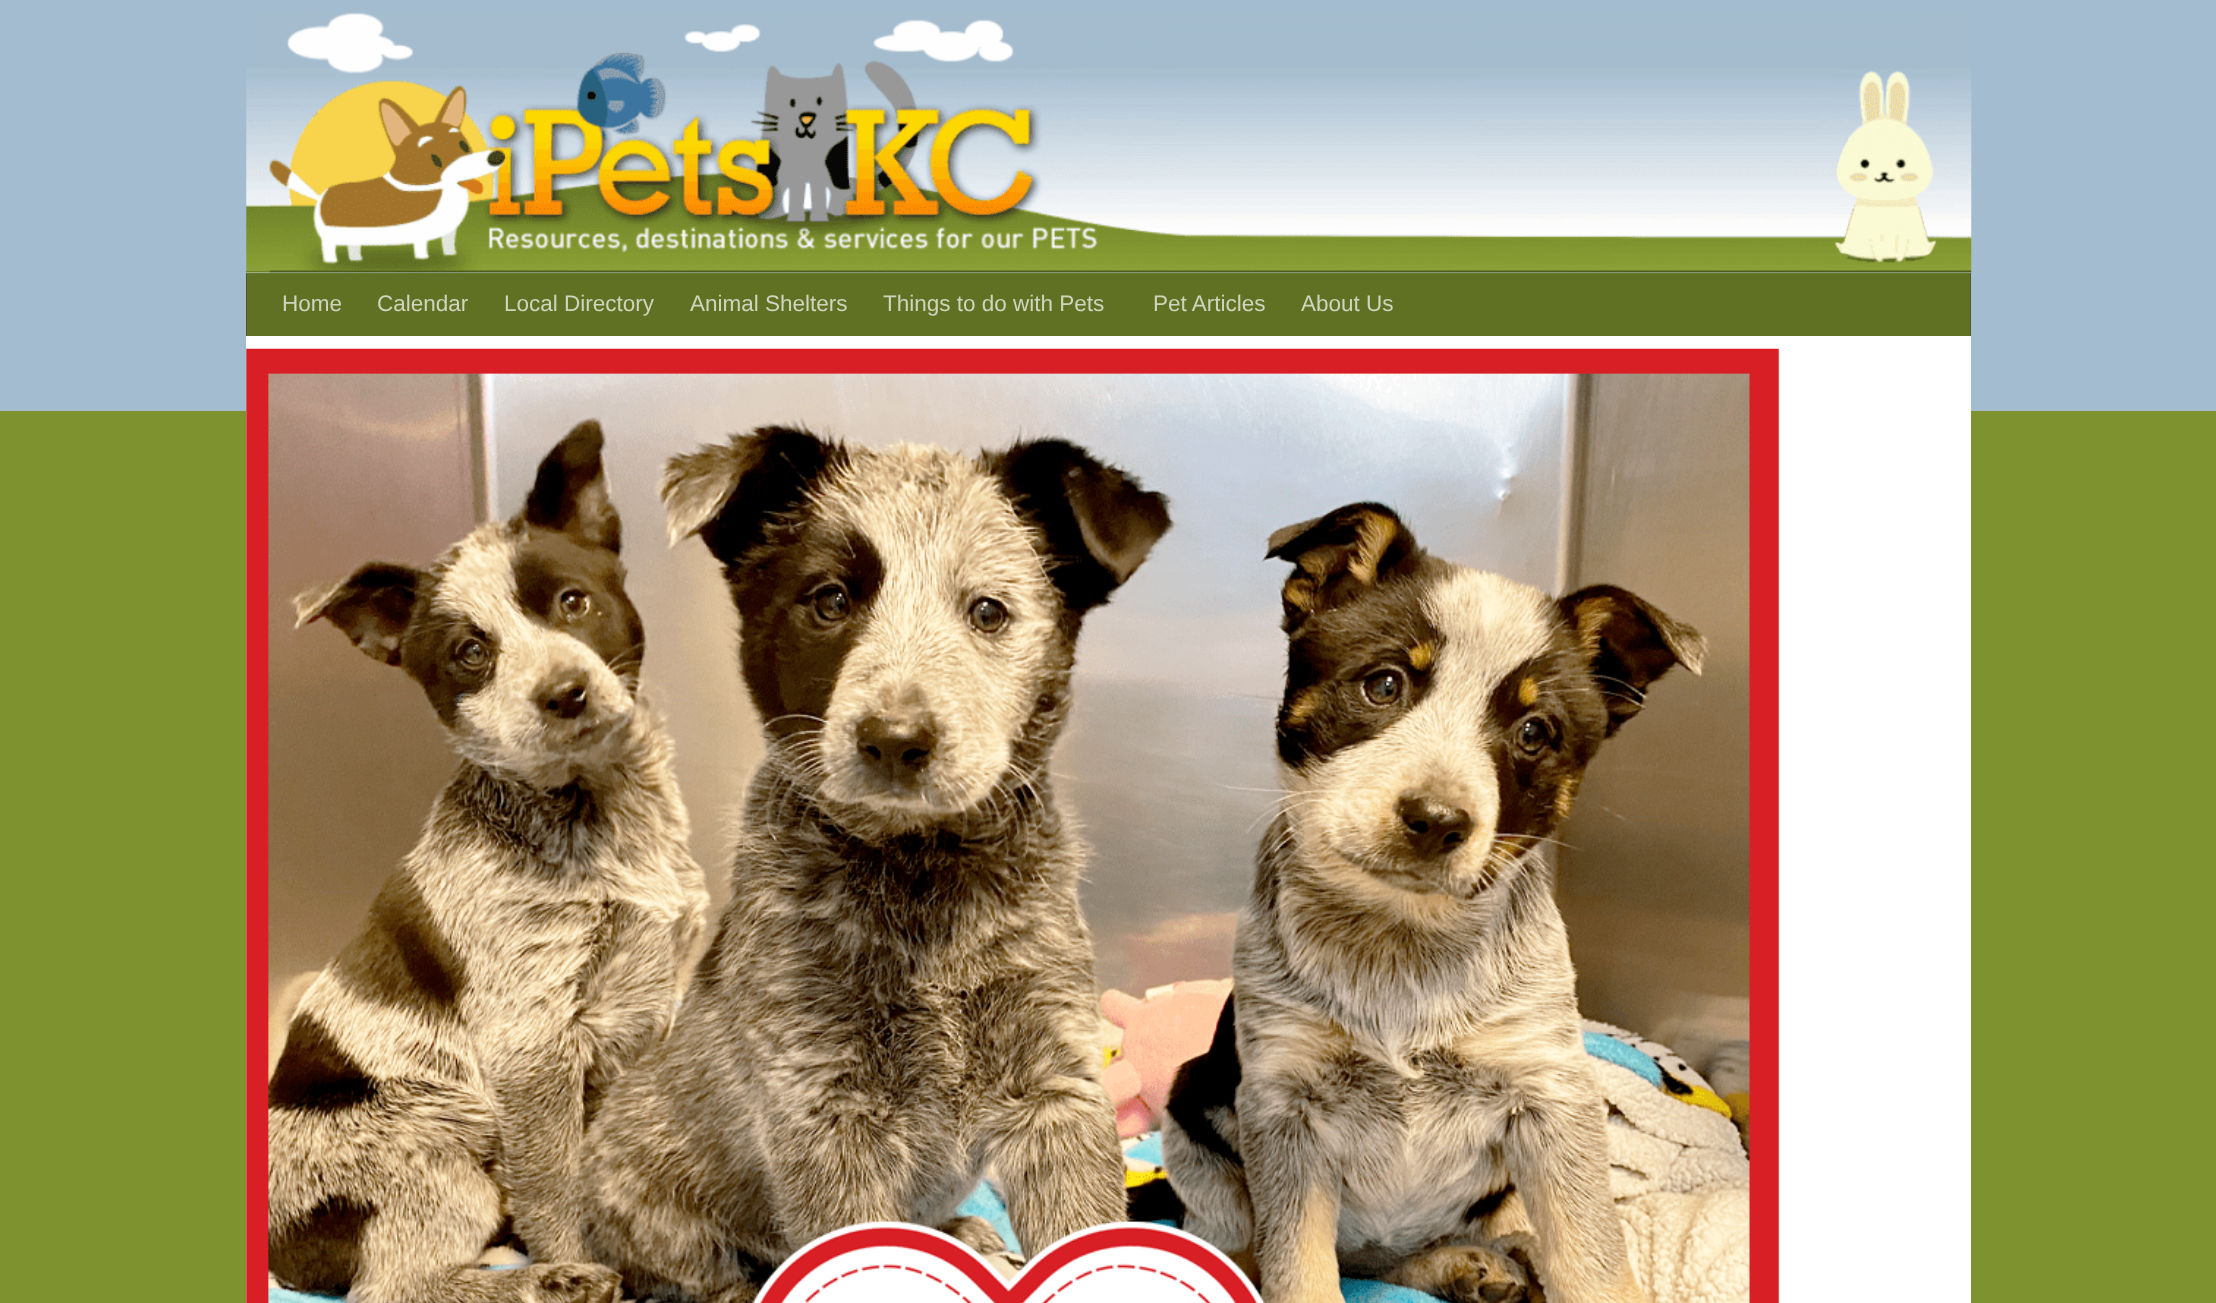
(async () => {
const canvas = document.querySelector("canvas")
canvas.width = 2216
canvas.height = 1303
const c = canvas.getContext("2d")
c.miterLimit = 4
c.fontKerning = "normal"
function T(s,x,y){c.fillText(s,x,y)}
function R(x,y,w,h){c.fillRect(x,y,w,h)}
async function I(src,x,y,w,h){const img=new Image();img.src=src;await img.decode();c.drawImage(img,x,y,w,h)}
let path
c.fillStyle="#7e932f"
R(0,0,2216,1303)
c.fillStyle="#a4bccf"
R(0,0,2216,411)
await I("1.png",246,12,1726,261)
c.fillStyle="#00000033"
path = new Path2D("M246 271v64v-63h1725v-1z")
c.fill(path)
c.fillStyle="#617124"
R(247,274,1723,62)
c.fillStyle="#69782f"
R(246,273,1725,1)
c.fillStyle="#4e5a1d"
R(1970,273,1,63)
c.fillStyle="#576228"
R(1970,273,1,1)
c.fillStyle="#4e5a1d"
R(246,273,1,63)
c.fillStyle="#576228"
R(246,273,1,1)
c.font="22.5px Liberation Sans"
c.fillStyle="#d0d4bd"
T("Home",282,311)
T("Calendar",377,311)
T("Local Directory",504,311)
T("Animal Shelters",690,311)
T("Things to do with Pets",883,311)
T("Pet Articles",1153,311)
T("About Us",1301,311)
c.fillStyle="#fff"
R(246,336,1725,967)
await I("2.png",246,348,1533,955)
})()
